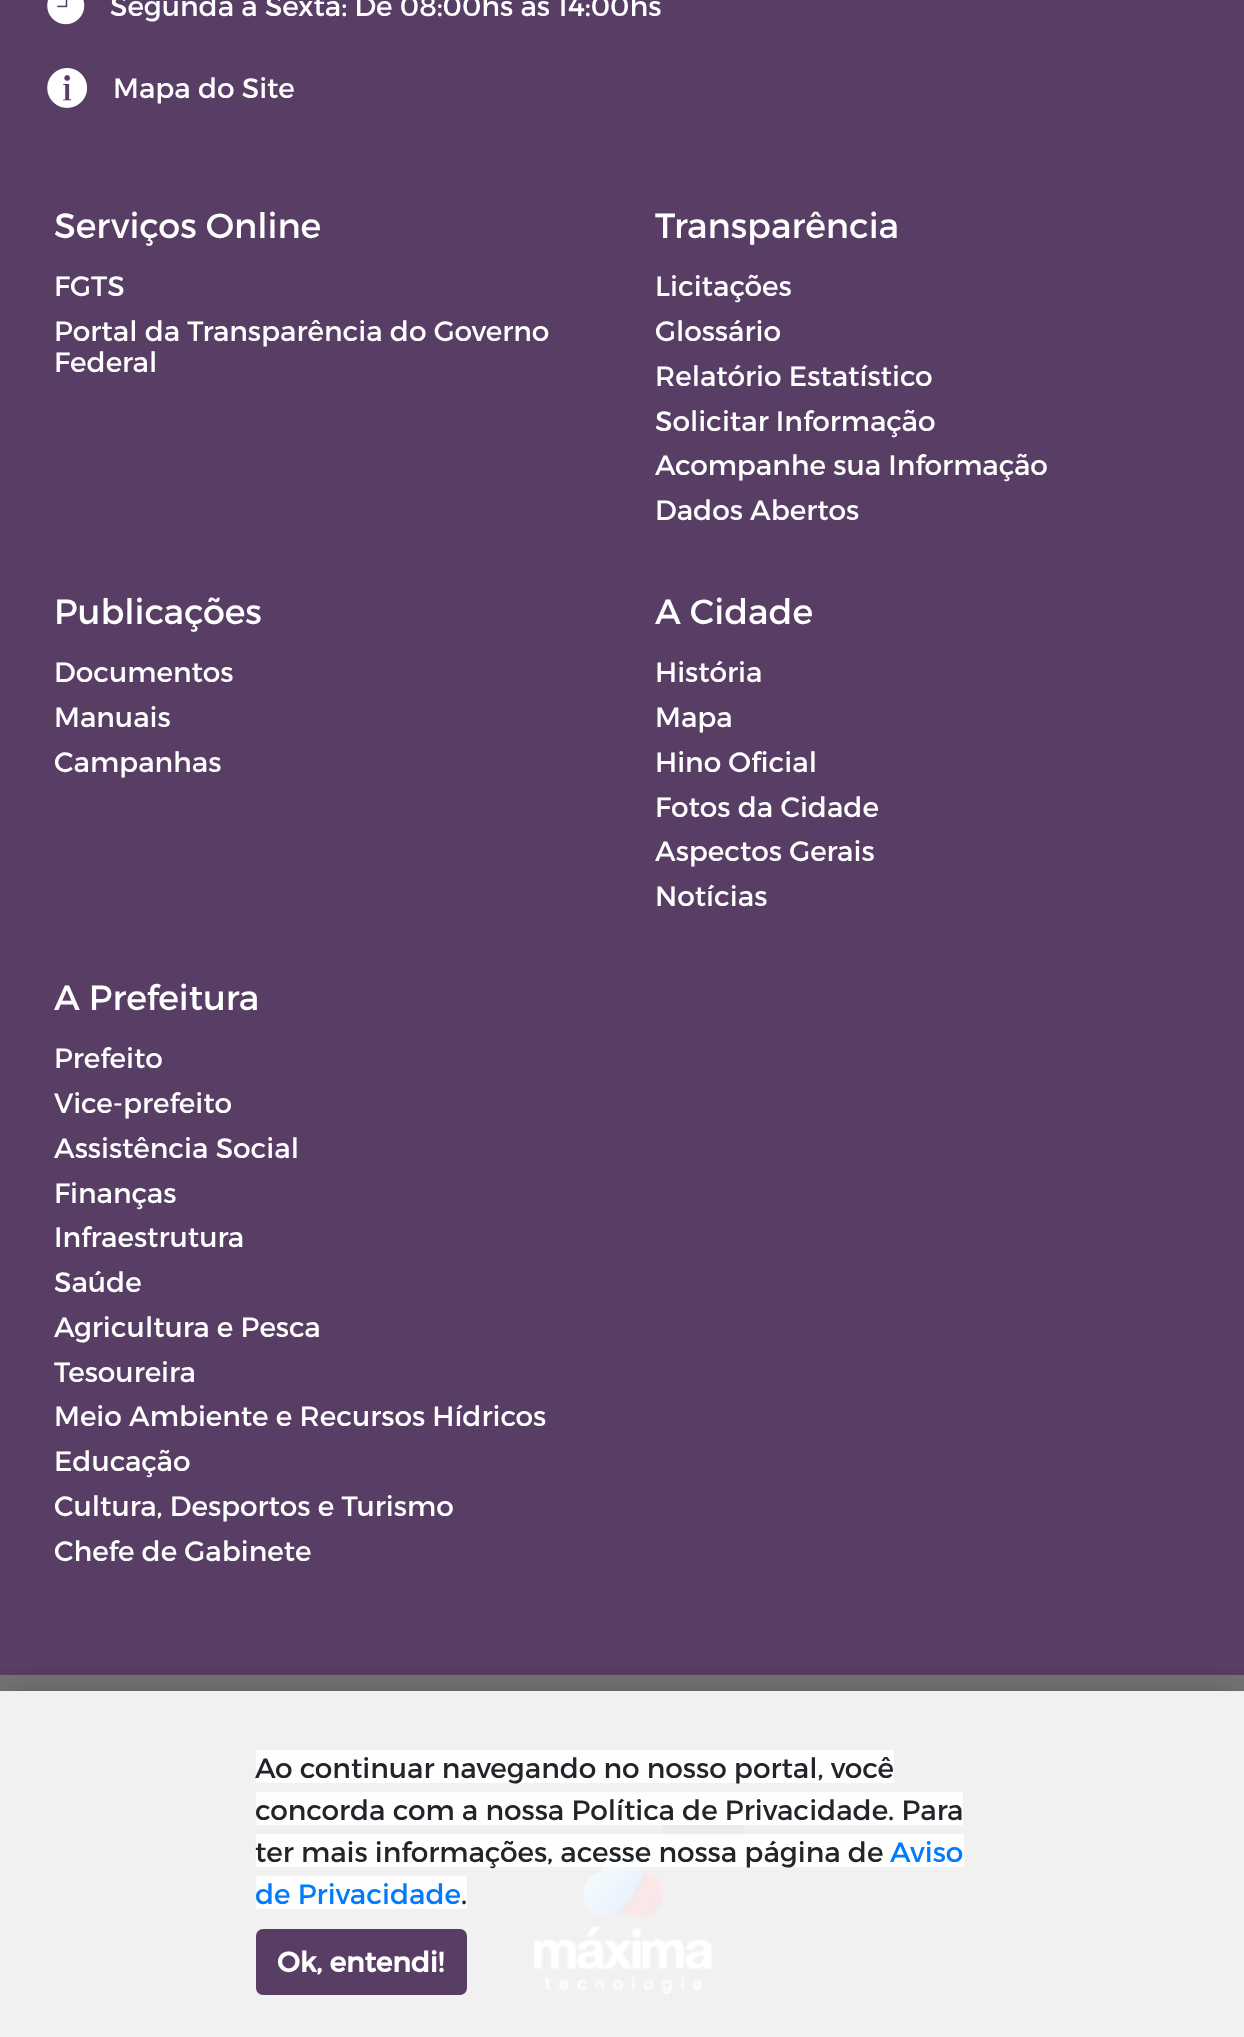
(async () => {
const canvas = document.querySelector("canvas")
canvas.width = 1244
canvas.height = 2037
const c = canvas.getContext("2d")
c.miterLimit = 4
c.fontKerning = "normal"
function T(s,x,y){c.fillText(s,x,y)}
function R(x,y,w,h){c.fillRect(x,y,w,h)}
function Q(x,y,w,h,r){c.beginPath();c.roundRect(x,y,w,h,r);c.fill()}
async function I(src,x,y,w,h){const img=new Image();img.src=src;await img.decode();c.drawImage(img,x,y,w,h)}
c.fillStyle="#583d65"
R(0,0,1244,2037)
await I("1.png",47,0,38,25)
c.font="28px Montserrat"
c.fillStyle="#fff"
T("Segunda à Sexta: De 08:00hs às 14:00hs",110,16)
await I("2.png",47,68,41,40)
T("Mapa do Site",113,98)
c.font="35px Montserrat"
T("Serviços Online",54,238)
c.font="28px Montserrat"
T("FGTS",54,296)
T("Portal da Transparência do Governo",54,341)
T("Federal",54,372)
c.font="35px Montserrat"
T("Transparência",655,238)
c.font="28px Montserrat"
T("Licitações",655,296)
T("Glossário",655,341)
T("Relatório Estatístico",655,386)
T("Solicitar Informação",655,431)
T("Acompanhe sua Informação",655,475)
T("Dados Abertos",655,520)
c.font="35px Montserrat"
T("Publicações",54,624)
c.font="28px Montserrat"
T("Documentos",54,682)
T("Manuais",54,727)
T("Campanhas",54,772)
c.font="35px Montserrat"
T("A Cidade",655,624)
c.font="28px Montserrat"
T("História",655,682)
T("Mapa",655,727)
T("Hino Oficial",655,772)
T("Fotos da Cidade",655,817)
T("Aspectos Gerais",655,861)
T("Notícias",655,906)
c.font="35px Montserrat"
T("A Prefeitura",54,1010)
c.font="28px Montserrat"
T("Prefeito",54,1068)
T("Vice-prefeito",54,1113)
T("Assistência Social",54,1158)
T("Finanças",54,1203)
T("Infraestrutura",54,1247)
T("Saúde",54,1292)
T("Agricultura e Pesca",54,1337)
T("Tesoureira",54,1382)
T("Meio Ambiente e Recursos Hídricos",54,1426)
T("Educação",54,1471)
T("Cultura, Desportos e Turismo",54,1516)
T("Chefe de Gabinete",54,1561)
c.fillStyle="#757576"
R(0,1675,1244,16)
c.fillStyle="#f1f1f1"
R(0,1691,1244,346)
c.fillStyle="#ebebec"
Q(662,1808,82,31,7)
await I("3.png",533,1856,180,139)
c.save()
c.beginPath()
c.rect(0,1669,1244,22)
c.clip()
c.fillStyle="#00000033"
c.filter="blur(17.5px)"
c.beginPath()
c.rect(0,1691,1244,346)
c.fill()
c.filter="none"
c.restore()
c.fillStyle="#ffffffe6"
R(256,1750,638,33)
c.fillStyle="#212529"
T("Ao continuar navegando no nosso portal, você",255,1778)
c.fillStyle="#ffffffe6"
R(256,1792,707,33)
c.fillStyle="#212529"
T("concorda com a nossa Política de Privacidade. Para",255,1820)
c.fillStyle="#ffffffe6"
R(256,1834,635,33)
c.fillStyle="#212529"
T("ter mais informações, acesse nossa página de",255,1862)
c.fillStyle="#fefefe"
R(891,1834,73,33)
c.fillStyle="#007bff"
T("Aviso",890,1862)
c.fillStyle="#fefefe"
R(256,1876,211,33)
c.fillStyle="#007bff"
T("de Privacidade",255,1904)
c.fillStyle="#212529"
T(".",461,1904)
c.fillStyle="#583d65"
c.beginPath()
c.roundRect(257,1930,209,64,6)
c.fill()
c.strokeStyle="#583d65"
c.lineWidth=2
c.stroke()
c.font="bold 28px Montserrat"
c.fillStyle="#fff"
T("Ok, entendi!",277,1972)
})()
